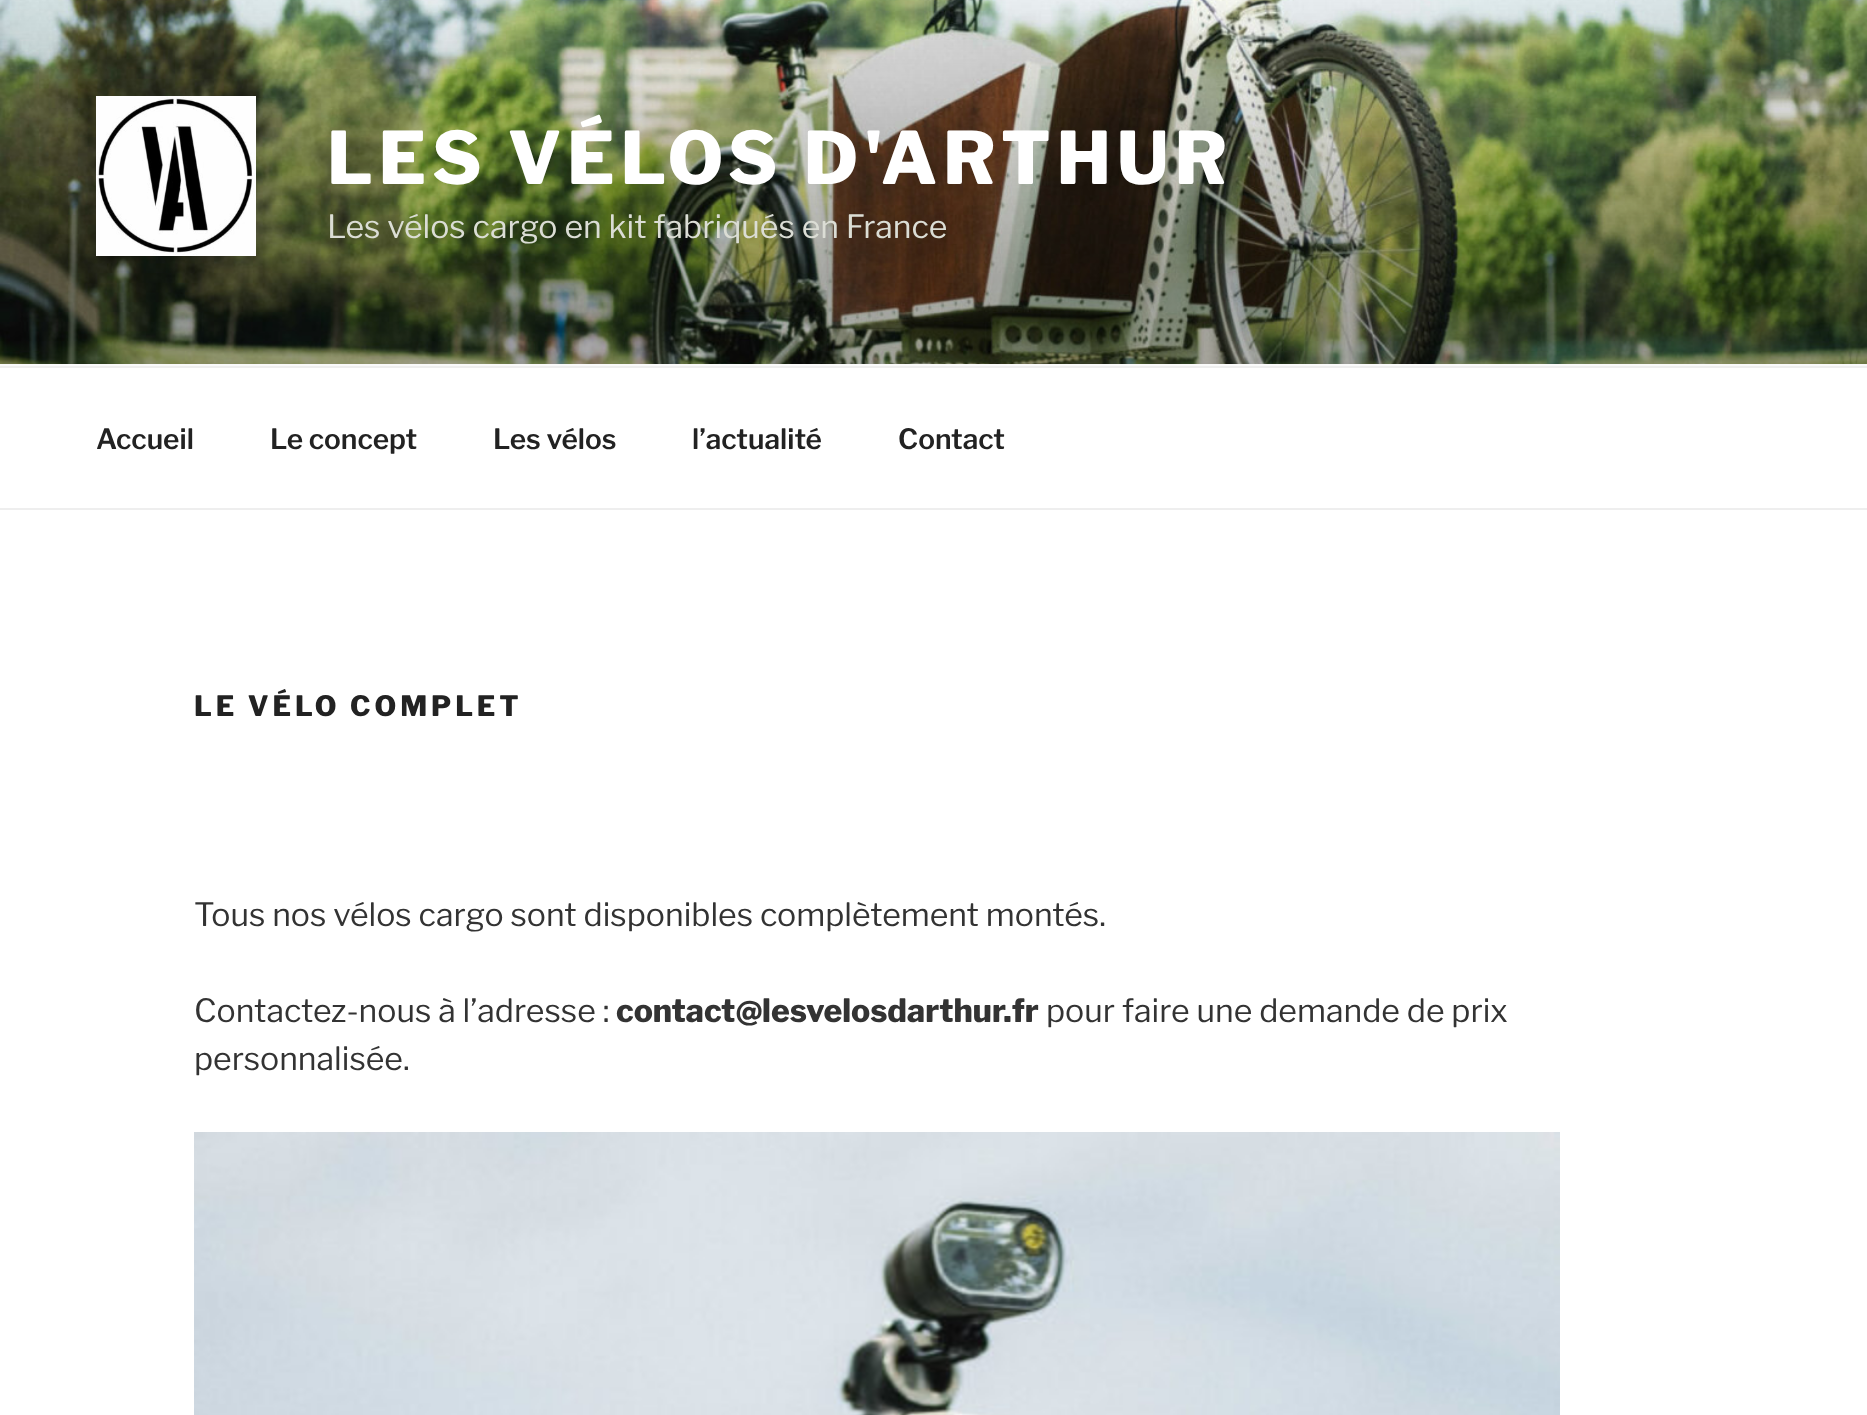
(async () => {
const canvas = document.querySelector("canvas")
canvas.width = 1867
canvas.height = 1415
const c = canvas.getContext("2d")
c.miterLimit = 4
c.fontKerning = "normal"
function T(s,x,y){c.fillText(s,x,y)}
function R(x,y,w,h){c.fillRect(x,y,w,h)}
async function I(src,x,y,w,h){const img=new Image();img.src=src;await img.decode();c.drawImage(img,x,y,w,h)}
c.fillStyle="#fff"
R(0,0,1867,1415)
c.fillStyle="#fafafa"
R(0,364,1867,2)
await I("1.png",0,0,1867,364)
await I("2.png",96,96,160,160)
c.letterSpacing="5.75px"
c.font="800 72px Libre Franklin"
c.fillStyle="#fff"
T("LES VÉLOS D'ARTHUR",327,184)
c.letterSpacing="0px"
c.font="32px Libre Franklin"
c.fillStyle="#dbddd5"
T("Les vélos cargo en kit fabriqués en France",327,238)
c.fillStyle="#eee"
R(0,366,1867,2)
R(0,508,1867,2)
c.font="600 28px Libre Franklin"
c.fillStyle="#222"
T("Accueil",96,449)
T("Le concept",270,449)
T("Les vélos",493,449)
T("l’actualité",692,449)
T("Contact",898,449)
c.letterSpacing="3.9px"
c.font="800 28px Libre Franklin"
T("LE VÉLO COMPLET",194,716)
c.letterSpacing="0px"
c.font="32px Libre Franklin"
c.fillStyle="#333"
T("Tous nos vélos cargo sont disponibles complètement montés.",194,926)
T("Contactez-nous à l’adresse :",194,1022)
c.font="800 32px Libre Franklin"
T("contact@lesvelosdarthur.fr",616,1022)
c.font="32px Libre Franklin"
T("pour faire une demande de prix",1046,1022)
T("personnalisée.",194,1070)
await I("3.png",194,1132,1366,283)
})()
